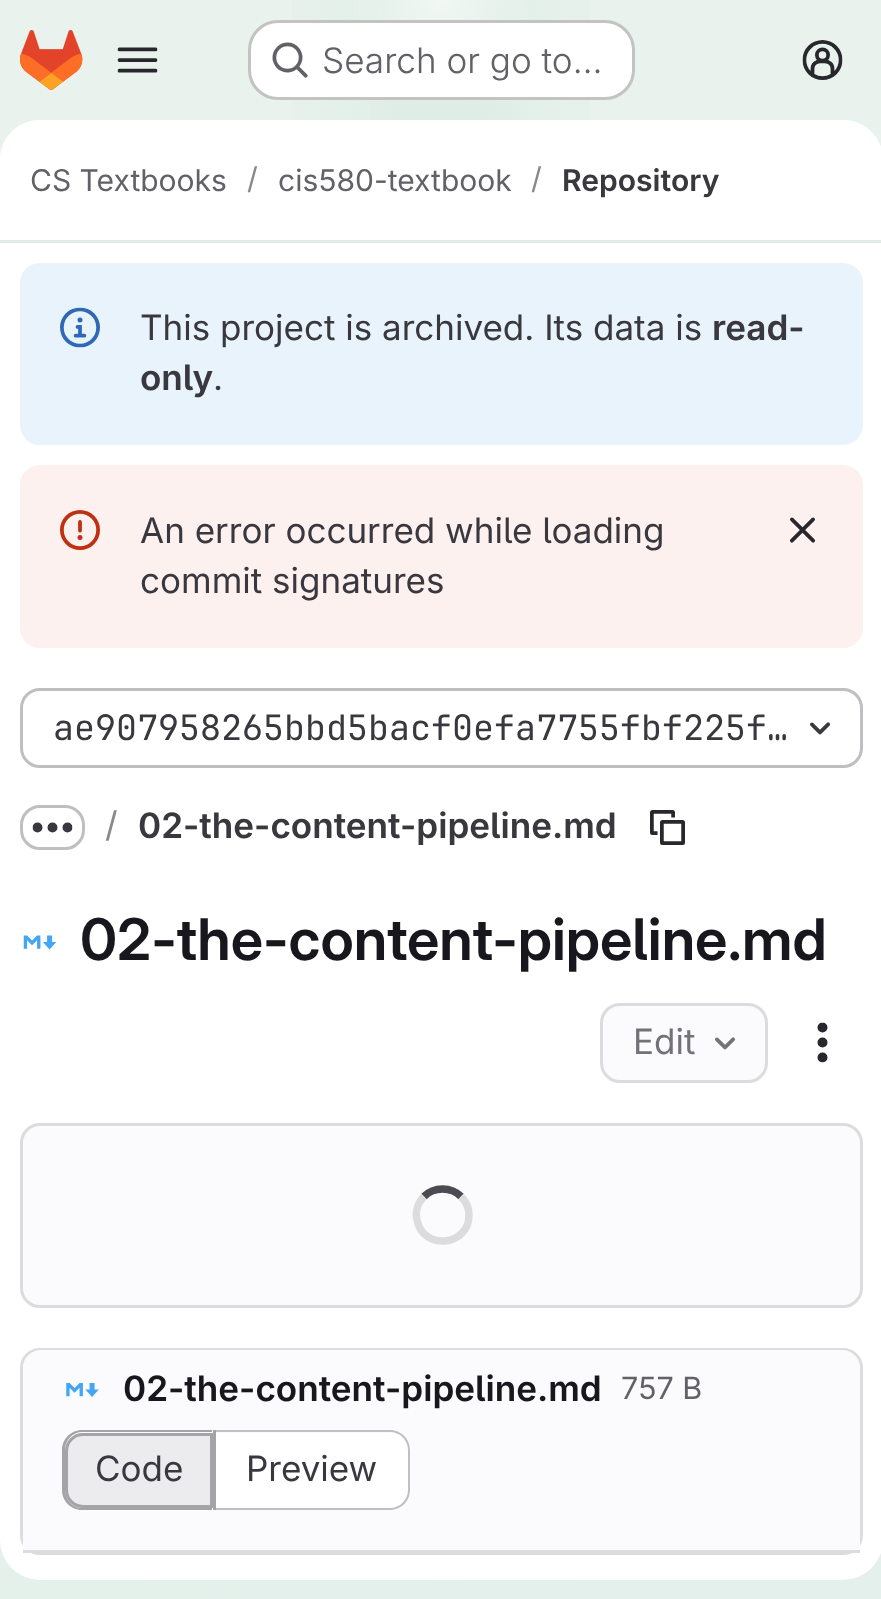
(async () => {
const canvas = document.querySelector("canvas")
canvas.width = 881
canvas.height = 1599
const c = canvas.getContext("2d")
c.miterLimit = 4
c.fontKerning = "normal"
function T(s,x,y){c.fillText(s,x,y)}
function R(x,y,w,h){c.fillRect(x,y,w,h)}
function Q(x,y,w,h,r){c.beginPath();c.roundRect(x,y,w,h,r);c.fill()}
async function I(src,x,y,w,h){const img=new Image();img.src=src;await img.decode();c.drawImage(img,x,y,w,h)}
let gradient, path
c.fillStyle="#fff"
R(0,0,881,1599)
gradient = c.createLinearGradient(591,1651,291,-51)
gradient.addColorStop(0,"#e4f0eb")
gradient.addColorStop(.7,"#e9f2ed")
c.fillStyle = gradient
R(0,0,881,1599)
gradient = c.createRadialGradient(441,0,0,441,0,441)
gradient.addColorStop(0,"#ddede6")
gradient.addColorStop(.4,"#ddede600")
c.fillStyle = gradient
c.beginPath()
c.rect(292,0,298,120)
c.save()
c.clip()
c.scale(1,1600 / 441)
c.fillRect(0,0,881,441)
c.restore()
gradient = c.createRadialGradient(441,0,0,441,0,441)
gradient.addColorStop(0,"#deede5")
gradient.addColorStop(.28,"#deede500")
c.fillStyle = gradient
c.beginPath()
c.rect(370,0,142,120)
c.save()
c.clip()
c.scale(1,1600 / 441)
c.fillRect(0,0,881,441)
c.restore()
gradient = c.createRadialGradient(441,0,0,441,0,1660)
gradient.addColorStop(0,"#ffffff99")
gradient.addColorStop(.06,"#ffffff00")
c.fillStyle = gradient
R(354,0,174,20)
await I("1.png",20,30,63,60)
await I("2.png",117,47,41,26)
c.fillStyle="#fff"
Q(248,20,387,80,30)
c.beginPath()
c.roundRect(249.5,21.5,384,77,28.5)
c.strokeStyle="#0505063d"
c.lineWidth=3
c.stroke()
await I("3.png",272,42,36,36)
c.font="300 35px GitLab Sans"
c.fillStyle="#626168"
T("Search or go to…",322,73)
await I("4.png",802,40,41,40)
c.fillStyle="#fff"
Q(0,120,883,1460,40)
path = new Path2D("M40 120h803c22 0 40 18 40 40v83h-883v-83c0-22 18-40 40-40z")
c.fill(path)
c.fillStyle="#dfece5"
R(0,240,881,3)
c.font="30px GitLab Sans"
c.fillStyle="#626168"
T("CS Textbooks",30,191)
c.fillStyle="#89888d"
T("/",247,189)
c.fillStyle="#626168"
T("cis580-textbook",278,191)
c.fillStyle="#89888d"
T("/",531,189)
c.font="600 30px 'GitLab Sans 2'"
c.fillStyle="#3a383f"
T("Repository",562,191)
c.fillStyle="#e9f3fc"
Q(20,263,843,182,20)
await I("5.png",60,307,40,41)
c.font="35px GitLab Sans"
c.fillStyle="#3a383f"
T("This project is archived. Its data is",140,340)
c.font="600 35px 'GitLab Sans 2'"
T("read-",712,340)
T("only",140,390)
c.font="35px GitLab Sans"
T(".",213,390)
c.fillStyle="#fcf1ef"
Q(20,465,843,183,20)
await I("6.png",60,510,40,40)
c.fillStyle="#3a383f"
T("An error occurred while loading",140,543)
T("commit signatures",140,593)
await I("7.png",789,517,27,26)
c.beginPath()
c.roundRect(21.5,689.5,840,77,18.5)
c.strokeStyle="#bfbfc3"
c.stroke()
c.font="35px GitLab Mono"
T("ae907958265bbd5bacf0efa7755fbf225f…",53,740)
await I("8.png",810,722,21,13)
c.beginPath()
c.roundRect(21.5,806.5,62,42,18.5)
c.stroke()
await I("9.png",32,822,41,11)
c.font="35px GitLab Sans"
c.fillStyle="#89888d"
T("/",105,837)
c.save()
c.beginPath()
c.roundRect(138,803,480,42,10)
c.clip()
c.font="600 35px 'GitLab Sans 2'"
c.fillStyle="#3a383f"
T("02-the-content-pipeline.md",138,838)
c.restore()
await I("10.png",650,810,35,35)
await I("11.png",23,935,34,15)
c.font="600 57.5px GitLab Sans"
c.fillStyle="#18171d"
T("02-the-content-pipeline.md",80,960)
c.fillStyle="#fbfafd"
c.beginPath()
c.roundRect(601.5,1004.5,165,77,18.5)
c.fill()
c.strokeStyle="#dcdcde"
c.stroke()
c.font="35px GitLab Sans"
c.fillStyle="#737278"
T("Edit",633,1054)
await I("12.png",715,1037,21,13)
await I("13.png",817,1022,11,41)
c.fillStyle="#fbfafd"
c.beginPath()
c.roundRect(21.5,1124.5,840,182,18.5)
c.fill()
c.stroke()
path = new Path2D("M424 1196.5c10-10 27-10 37 0")
c.strokeStyle="#4c4b51"
c.lineWidth=7.5
c.stroke(path)
path = new Path2D("M461 1196.5c5 5 8 11.5 8 18.5c0 31.5-46 36-52 5c-2-8.5 1-17.5 7-23.5")
c.strokeStyle="#dcdcde"
c.stroke(path)
c.beginPath()
c.roundRect(21.5,1349.5,840,204,18.5)
c.lineWidth=3
c.stroke()
c.beginPath()
c.roundRect(23,1350,837,203,[18,18,0,0])
c.fill()
c.fillStyle="#dcdcde"
R(23,1550,837,3)
await I("14.png",66,1383,33,14)
c.font="600 35px 'GitLab Sans 2'"
c.fillStyle="#18171d"
T("02-the-content-pipeline.md",123,1401)
c.font="30.5px GitLab Sans"
c.fillStyle="#626168"
T("757 B",621,1399)
c.fillStyle="#ececef"
c.beginPath()
c.roundRect(66.5,1434.5,145,72,[16.5,0,0,16.5])
c.fill()
c.strokeStyle="#a4a3a8"
c.stroke()
c.fillStyle="#a4a3a8"
path = new Path2D("M82 1430h130v80h-130c-11 0-20-9-20-20v-40c0-11 9-20 20-20zm0 2h130v76h-130c-9 0-17-8-17-18v-40c0-10 8-18 17-18z")
c.fill(path,"evenodd")
c.font="35px GitLab Sans"
c.fillStyle="#3a383f"
T("Code",95,1481)
c.fillStyle="#fff"
c.beginPath()
c.roundRect(215,1433,193,75,[0,18,18,0])
c.fill()
c.fillStyle="#bfbfc3"
path = new Path2D("M215 1430h175c11 0 20 9 20 20v40c0 11-9 20-20 20h-175zm0 2h175c10 0 18 8 18 18v40c0 10-8 18-18 18h-175z")
c.fill(path,"evenodd")
c.fillStyle="#a4a3a8"
R(213,1430,3,80)
c.fillStyle="#3a383f"
T("Preview",246,1481)
})()
